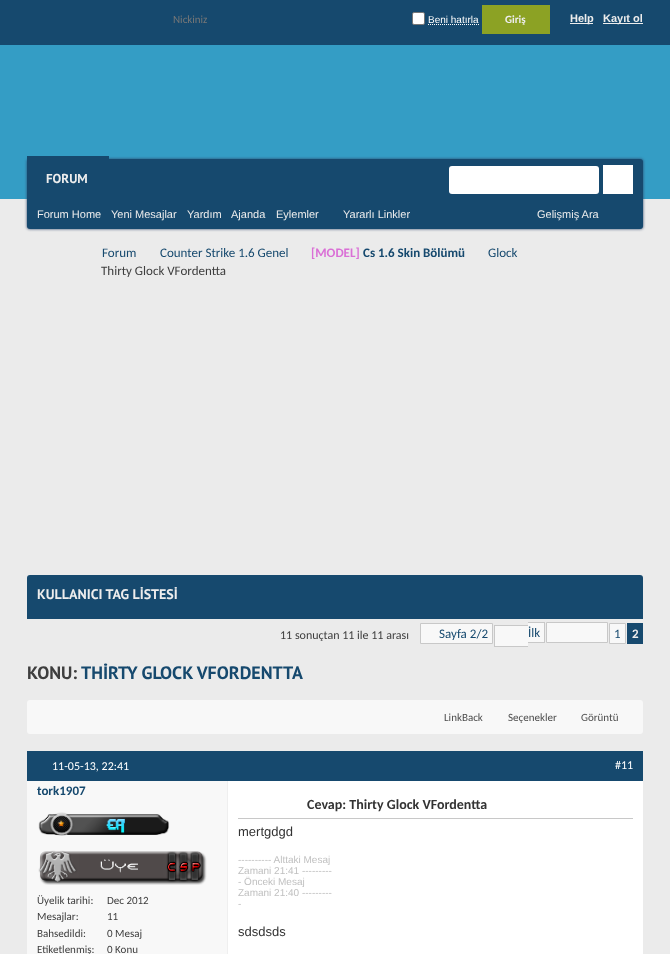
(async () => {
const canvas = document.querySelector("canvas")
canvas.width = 670
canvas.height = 954
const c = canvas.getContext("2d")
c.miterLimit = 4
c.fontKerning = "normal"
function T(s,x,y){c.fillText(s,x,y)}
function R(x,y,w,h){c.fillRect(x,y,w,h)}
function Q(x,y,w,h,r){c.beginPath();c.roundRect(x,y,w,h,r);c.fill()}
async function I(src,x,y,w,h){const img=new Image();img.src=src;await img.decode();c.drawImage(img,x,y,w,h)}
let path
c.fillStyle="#ebebeb"
R(0,0,670,954)
c.fillStyle="#16496e"
R(0,0,670,45)
c.font="11px Carlito"
c.fillStyle="#777"
T("Nickiniz",173,23)
c.fillStyle="#fff"
c.beginPath()
c.roundRect(412.5,12.5,12,12,1.5)
c.fill()
c.strokeStyle="#767676"
c.stroke()
c.font="10px Liberation Sans"
T("Beni hatırla",428,23)
path = new Path2D("M428 24.5h51")
c.strokeStyle="#fff"
c.setLineDash([1,1])
c.stroke(path)
c.fillStyle="#8ca224"
R(482,5,68,29)
c.font="bold 11px Carlito"
c.fillStyle="#ededed"
T("Giriş",505,23)
R(570,23,23,1)
c.font="bold 11px Liberation Sans"
T("Help",570,22)
R(603,23,40,1)
T("Kayıt ol",603,22)
c.fillStyle="#349dc5"
R(0,45,670,154)
c.fillStyle="#2e4569"
c.filter="blur(1.5px)"
c.beginPath()
c.roundRect(27,159,616,70,3)
c.fill()
c.filter="none"
c.fillStyle="#16496e"
Q(27,159,616,70,3)
R(27,156,82,6)
c.font="bold 13px PT Sans"
c.fillStyle="#ededed"
T("FORUM",46,183)
c.font="11px Liberation Sans"
T("Forum Home",37,218)
T("Yeni Mesajlar",111,218)
T("Yardım",187,218)
T("Ajanda",231,218)
T("Eylemler",276,218)
T("Yararlı Linkler",343,218)
c.fillStyle="#fff"
Q(449,166,150,28,3)
R(603,165,30,29)
c.fillStyle="#ededed"
T("Gelişmiş Ara",537,218)
c.font="13px Carlito"
c.fillStyle="#16496e"
T("Forum",102,257)
T("Counter Strike 1.6 Genel",160,257)
c.font="bold 13px Carlito"
c.fillStyle="#da70d6"
T("[MODEL]",311,257)
c.fillStyle="#16496e"
T("Cs 1.6 Skin Bölümü",363,257)
c.font="13px Carlito"
T("Glock",488,257)
c.fillStyle="#3e3e3e"
T("Thirty Glock VFordentta",101,275)
c.fillStyle="#16496e"
c.beginPath()
c.roundRect(27,575,616,44,[3,3,0,0])
c.fill()
c.font="bold 14px PT Sans"
c.fillStyle="#ededed"
T("KULLANICI TAG LİSTESİ",37,599)
c.font="12px Carlito"
c.fillStyle="#3e3e3e"
T("11 sonuçtan 11 ile 11 arası",280,639)
c.fillStyle="#f8f8f8"
c.beginPath()
c.rect(420.5,623.5,72,20)
c.fill()
c.strokeStyle="#c8c8c8"
c.setLineDash([])
c.stroke()
c.font="13px Carlito"
c.fillStyle="#16496e"
T("Sayfa 2/2",439,638)
c.fillStyle="#f8f8f8"
R(528,623,16,19)
c.fillStyle="#16496e"
T("İlk",528,637)
c.fillStyle="#f8f8f8"
R(495,626,33,20)
c.fillStyle="#c8c8c8"
R(494,625,34,1)
R(494,646,34,1)
R(494,625,1,22)
R(528,622,17,1)
R(544,622,1,21)
R(528,642,17,1)
c.fillStyle="#f8f8f8"
c.beginPath()
c.rect(546.5,622.5,61,20)
c.fill()
c.stroke()
c.beginPath()
c.rect(609.5,623.5,16,20)
c.fill()
c.stroke()
c.fillStyle="#16496e"
T("1",614,638)
R(627,623,16,21)
c.font="bold 13px Carlito"
c.fillStyle="#ededed"
T("2",632,638)
c.font="bold 18px PT Sans"
c.fillStyle="#3e3e3e"
T("KONU:",27,679)
c.fillStyle="#16496e"
T("THİRTY GLOCK VFORDENTTA",81,679)
c.fillStyle="#f8f8f8"
Q(27,700,616,34,3)
c.font="11px Carlito"
c.fillStyle="#4e4e4e"
T("LinkBack",444,721)
T("Seçenekler",508,721)
T("Görüntü",581,721)
c.fillStyle="#16496e"
R(27,751,616,30)
c.font="12px Carlito"
c.fillStyle="#fff"
T("11-05-13, 22:41",52,770)
T("#11",615,769)
c.fillStyle="#f8f8f8"
R(27,781,200,173)
c.font="bold 13px Carlito"
c.fillStyle="#16496e"
T("tork1907",37,795)
await I("1.png",38,812,132,24)
await I("2.png",38,850,169,35)
c.font="11px Carlito"
c.fillStyle="#3e3e3e"
T("Üyelik tarihi:",37,904)
T("Dec 2012",107,904)
T("Mesajlar:",37,920)
T("11",107,920)
T("Bahsedildi:",37,937)
T("0 Mesaj",107,937)
T("Etiketlenmiş:",37,953)
T("0 Konu",107,953)
c.fillStyle="#fff"
R(228,781,415,173)
c.fillStyle="#efefef"
R(227,781,1,173)
c.fillStyle="#c8c8c8"
R(238,818,395,1)
c.font="bold 14px Carlito"
c.fillStyle="#333"
T("Cevap: Thirty Glock VFordentta",307,809)
c.font="13px Liberation Sans"
T("mertgdgd",238,836)
c.font="10px Liberation Sans"
c.fillStyle="#c0c0c0"
T("---------- Alttaki Mesaj",238,863)
T("Zamani 21:41 ---------",238,874)
T("- Önceki Mesaj",238,885)
T("Zamani 21:40 ---------",238,896)
T("-",238,907)
c.font="13px Liberation Sans"
c.fillStyle="#333"
T("sdsdsds",238,936)
})()
